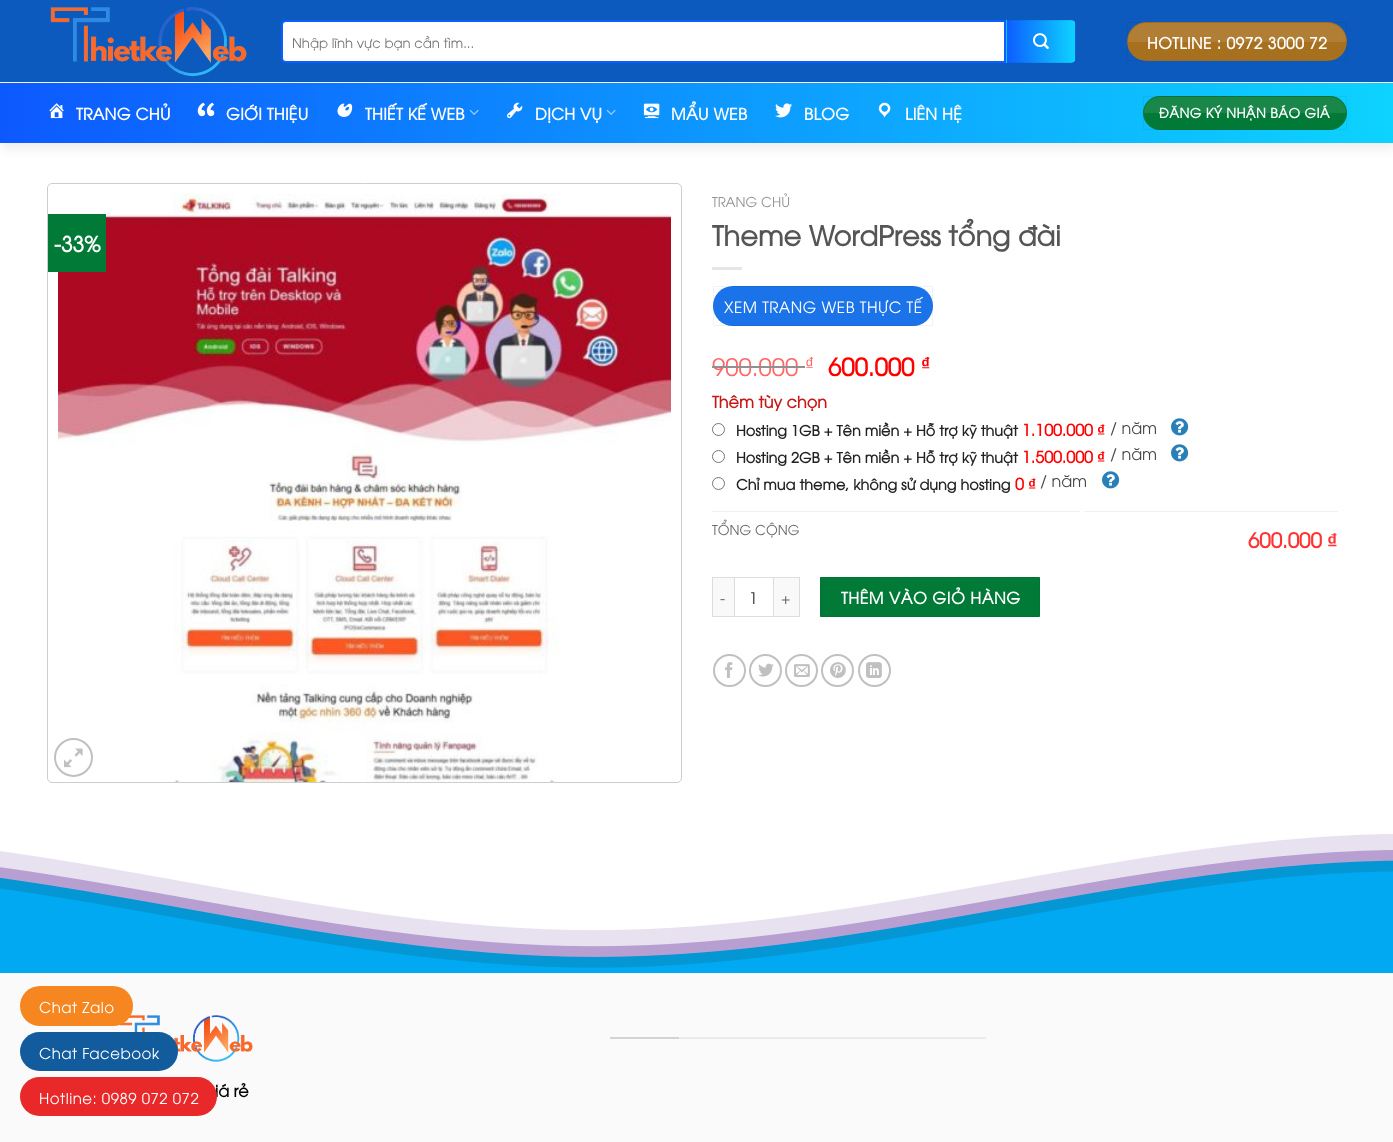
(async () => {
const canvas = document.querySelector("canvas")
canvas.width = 1393
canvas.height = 1142
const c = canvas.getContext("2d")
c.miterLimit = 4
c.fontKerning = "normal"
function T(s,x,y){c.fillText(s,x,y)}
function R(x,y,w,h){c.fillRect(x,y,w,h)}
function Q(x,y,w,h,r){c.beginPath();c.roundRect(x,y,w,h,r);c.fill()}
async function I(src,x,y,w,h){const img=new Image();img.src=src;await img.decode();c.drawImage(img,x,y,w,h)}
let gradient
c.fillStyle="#fff"
R(0,0,1393,1142)
c.fillStyle="#0d5abe"
R(0,0,1393,82)
c.fillStyle="#0000000f"
c.filter="blur(5px)"
c.beginPath()
c.rect(2,89,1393,61)
c.fill()
c.filter="none"
await I("1.png",50,7,197,69)
c.fillStyle="#fff"
c.beginPath()
c.roundRect(282,21,723,41,[4,0,0,4])
c.fill()
c.strokeStyle="#0d5eff"
c.lineWidth=2
c.stroke()
c.font="13.25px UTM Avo"
c.fillStyle="#757575"
T("Nhập lĩnh vực bạn cần tìm...",292,48)
gradient = c.createLinearGradient(939,42,1007,42)
gradient.addColorStop(0,"#0d5eff")
gradient.addColorStop(1,"#0dd3ff")
c.fillStyle = gradient
R(1006,20,1,43)
c.save()
c.beginPath()
c.roundRect(1006,20,70,43,[0,5,5,0])
c.clip()
gradient = c.createLinearGradient(1007,42,1075,42)
gradient.addColorStop(0,"#0d5eff")
gradient.addColorStop(1,"#0dd3ff")
c.fillStyle = gradient
R(1007,20,68,43)
gradient = c.createLinearGradient(1075,42,1143,42)
gradient.addColorStop(0,"#0d5eff")
gradient.addColorStop(1,"#0dd3ff")
c.fillStyle = gradient
R(1075,20,1,43)
c.restore()
c.strokeStyle="#0000000d"
c.lineWidth=1
c.strokeRect(1006.5,20.5,69,42)
await I("2.png",1033,33,16,16)
c.fillStyle="#a7701f"
Q(1127,22,220,39,19.5)
c.strokeRect(1127.5,22.5,219,38)
c.fillStyle="#ffffff1a"
c.beginPath()
c.roundRect(1128,23,218,19,[18.5,18.5,0,0])
c.fill()
c.letterSpacing="0.5px"
c.font="bold 15.6px UTM Avo"
c.fillStyle="#fff"
T("HOTLINE : 0972 3000 72",1147,49)
gradient = c.createLinearGradient(0,113,1393,113)
gradient.addColorStop(0,"#0d59ff")
gradient.addColorStop(1,"#0dd3ff")
c.fillStyle = gradient
R(0,83,1393,60)
c.fillStyle="#f6f6f6"
R(0,82,1393,1)
await I("3.png",49,103,15,16)
c.letterSpacing="0.25px"
c.font="bold 16px UTM Avo"
c.fillStyle="#fff"
T("TRANG CHỦ",76,120)
await I("4.png",197,102,18,15)
T("GIỚI THIỆU",226,120)
await I("5.png",337,103,16,14)
T("THIẾT KẾ WEB",365,120)
await I("6.png",469,109,10,6)
await I("7.png",506,102,17,17)
T("DỊCH VỤ",535,120)
await I("8.png",606,109,10,6)
await I("9.png",643,103,17,16)
T("MẨU WEB",671,120)
await I("10.png",775,103,17,15)
T("BLOG",804,120)
await I("11.png",878,102,13,16)
T("LIÊN HỆ",905,120)
c.fillStyle="#007a36"
Q(1143,96,204,34,17)
c.strokeRect(1143.5,96.5,203,33)
c.fillStyle="#ffffff1a"
c.beginPath()
c.roundRect(1144,97,202,16,[16,16,0,0])
c.fill()
c.letterSpacing="0.4px"
c.font="bold 13.25px UTM Avo"
c.fillStyle="#fff"
T("ĐĂNG KÝ NHẬN BÁO GIÁ",1159,118)
c.beginPath()
c.roundRect(47.5,183.5,634,599,4.5)
c.strokeStyle="#cdcdcd"
c.stroke()
await I("12.png",58,194,613,588)
c.fillStyle="#007a36"
R(48,214,58,58)
c.letterSpacing="0px"
c.font="bold 21px UTM Avo"
c.fillStyle="#fff"
T("-33%",54,252)
c.beginPath()
c.arc(73.5,757.5,18.5,0,7)
c.strokeStyle="#c0c0c0"
c.lineWidth=2
c.stroke()
await I("13.png",64,748,19,20)
c.font="13.5px UTM Avo"
c.fillStyle="#949494"
T("TRANG CHỦ",712,207)
c.font="bold 27.25px UTM Avo"
c.fillStyle="#555"
T("Theme WordPress tổng đài",712,246)
c.fillStyle="#e6e6e6"
R(712,267,30,3)
c.fillStyle="#1a73e8"
Q(713,286,220,40,20)
c.strokeStyle="#0000000d"
c.lineWidth=1
c.strokeRect(713.5,286.5,219,39)
c.letterSpacing="0.5px"
c.font="15.5px UTM Avo"
c.fillStyle="#fff"
T("XEM TRANG WEB THỰC TẾ",724,313)
c.letterSpacing="0px"
c.font="24px UTM Avo"
c.fillStyle="#f66"
T("900.000",712,376)
c.fillStyle="#918f8f"
R(712,366,93,2)
c.font="18px Liberation Sans"
c.fillStyle="#f66"
T("₫",805,370)
c.font="bold 24px UTM Avo"
c.fillStyle="#f00"
T("600.000",828,376)
c.font="bold 18px Liberation Sans"
T("₫",921,370)
c.font="bold 16px UTM Avo"
c.fillStyle="#ca1515"
T("Thêm tùy chọn",712,408)
c.beginPath()
c.arc(718.5,429.5,6,0,7)
c.strokeStyle="#767676"
c.stroke()
c.font="bold 14.4px UTM Avo"
c.fillStyle="#222"
T("Hosting 1GB + Tên miền + Hỗ trợ kỹ thuật",736,436)
c.font="bold 16px UTM Avo"
c.fillStyle="#f00"
T("1.100.000",1022,436)
c.font="bold 16px Liberation Sans"
T("₫",1097,436)
c.font="16px UTM Avo"
c.fillStyle="#484545"
T("/ năm",1110,434)
await I("14.png",1171,418,18,18)
c.beginPath()
c.arc(718.5,456.5,6,0,7)
c.stroke()
c.font="bold 14.4px UTM Avo"
c.fillStyle="#222"
T("Hosting 2GB + Tên miền + Hỗ trợ kỹ thuật",736,463)
c.font="bold 16px UTM Avo"
c.fillStyle="#f00"
T("1.500.000",1022,463)
c.font="bold 16px Liberation Sans"
T("₫",1097,463)
c.font="16px UTM Avo"
c.fillStyle="#484545"
T("/ năm",1110,460)
await I("14.png",1171,444,18,18)
c.beginPath()
c.arc(718.5,483.5,6,0,7)
c.stroke()
c.font="bold 14.4px UTM Avo"
c.fillStyle="#222"
T("Chỉ mua theme, không sử dụng hosting",736,490)
c.font="bold 16px UTM Avo"
c.fillStyle="#f00"
T("0",1015,490)
c.font="bold 16px Liberation Sans"
T("₫",1028,490)
c.font="16px UTM Avo"
c.fillStyle="#484545"
T("/ năm",1040,487)
await I("14.png",1102,471,18,18)
c.fillStyle="#f1f1f1"
R(712,511,368,1)
c.font="13.5px UTM Avo"
c.fillStyle="#6d6a6a"
T("TỔNG CỘNG",712,535)
c.fillStyle="#f1f1f1"
R(1084,511,254,1)
c.font="bold 20.5px UTM Avo"
c.fillStyle="#f33"
T("600.000",1248,548)
c.font="bold 20.5px Liberation Sans"
T("₫",1327,548)
c.fillStyle="#f9f9f9"
R(713,578,21,38)
c.fillStyle="#ddd"
R(712,577,22,1)
R(712,616,22,1)
R(712,577,1,40)
c.letterSpacing="0.5px"
c.font="15.5px UTM Avo"
c.fillStyle="#666"
T("-",720,604)
c.strokeStyle="#ddd"
c.strokeRect(734.5,577.5,39,39)
c.letterSpacing="0px"
c.font="16px UTM Avo"
c.fillStyle="#333"
T("1",749,604)
c.fillStyle="#f9f9f9"
R(774,578,25,38)
c.fillStyle="#ddd"
R(774,577,26,1)
R(799,577,1,40)
R(774,616,26,1)
c.letterSpacing="0.5px"
c.font="15.5px UTM Avo"
c.fillStyle="#666"
T("+",781,604)
c.fillStyle="#007a36"
c.beginPath()
c.rect(820.5,577.5,219,39)
c.fill()
c.strokeStyle="#007433"
c.stroke()
c.font="bold 16px UTM Avo"
c.fillStyle="#fff"
T("THÊM VÀO GIỎ HÀNG",841,604)
c.beginPath()
c.arc(729.5,670.5,15.5,0,7)
c.strokeStyle="#c0c0c0"
c.lineWidth=2
c.stroke()
await I("15.png",725,662,8,16)
c.beginPath()
c.arc(765.5,670.5,15.5,0,7)
c.stroke()
await I("16.png",758,663,16,14)
c.beginPath()
c.arc(801.5,670.5,15.5,0,7)
c.stroke()
await I("17.png",794,664,16,13)
c.beginPath()
c.arc(837.5,670.5,15.5,0,7)
c.stroke()
await I("18.png",830,662,16,16)
c.beginPath()
c.arc(874.5,670.5,15.5,0,7)
c.stroke()
await I("19.png",866,662,16,16)
await I("20.png",0,834,1393,139)
c.fillStyle="#fafafa"
R(0,973,1393,169)
c.fillStyle="#ececec"
R(679,1037,307,2)
c.fillStyle="#d4d4d4"
R(610,1037,69,2)
await I("21.png",119,1015,134,47)
c.letterSpacing="0px"
c.fillStyle="#000"
T("iá rẻ",215,1097)
c.fillStyle="#f58620"
Q(20,986,113,40,20)
c.letterSpacing="0.5px"
c.font="15px UTM Avo"
c.fillStyle="#fff"
T("Chat Zalo",39,1013)
c.fillStyle="#125c9e"
Q(20,1032,158,39,19.5)
c.fillStyle="#fff"
T("Chat Facebook",39,1059)
c.fillStyle="#e82829"
Q(20,1077,197,39,19.5)
c.fillStyle="#fff"
T("Hotline: 0989 072 072",39,1104)
})()
